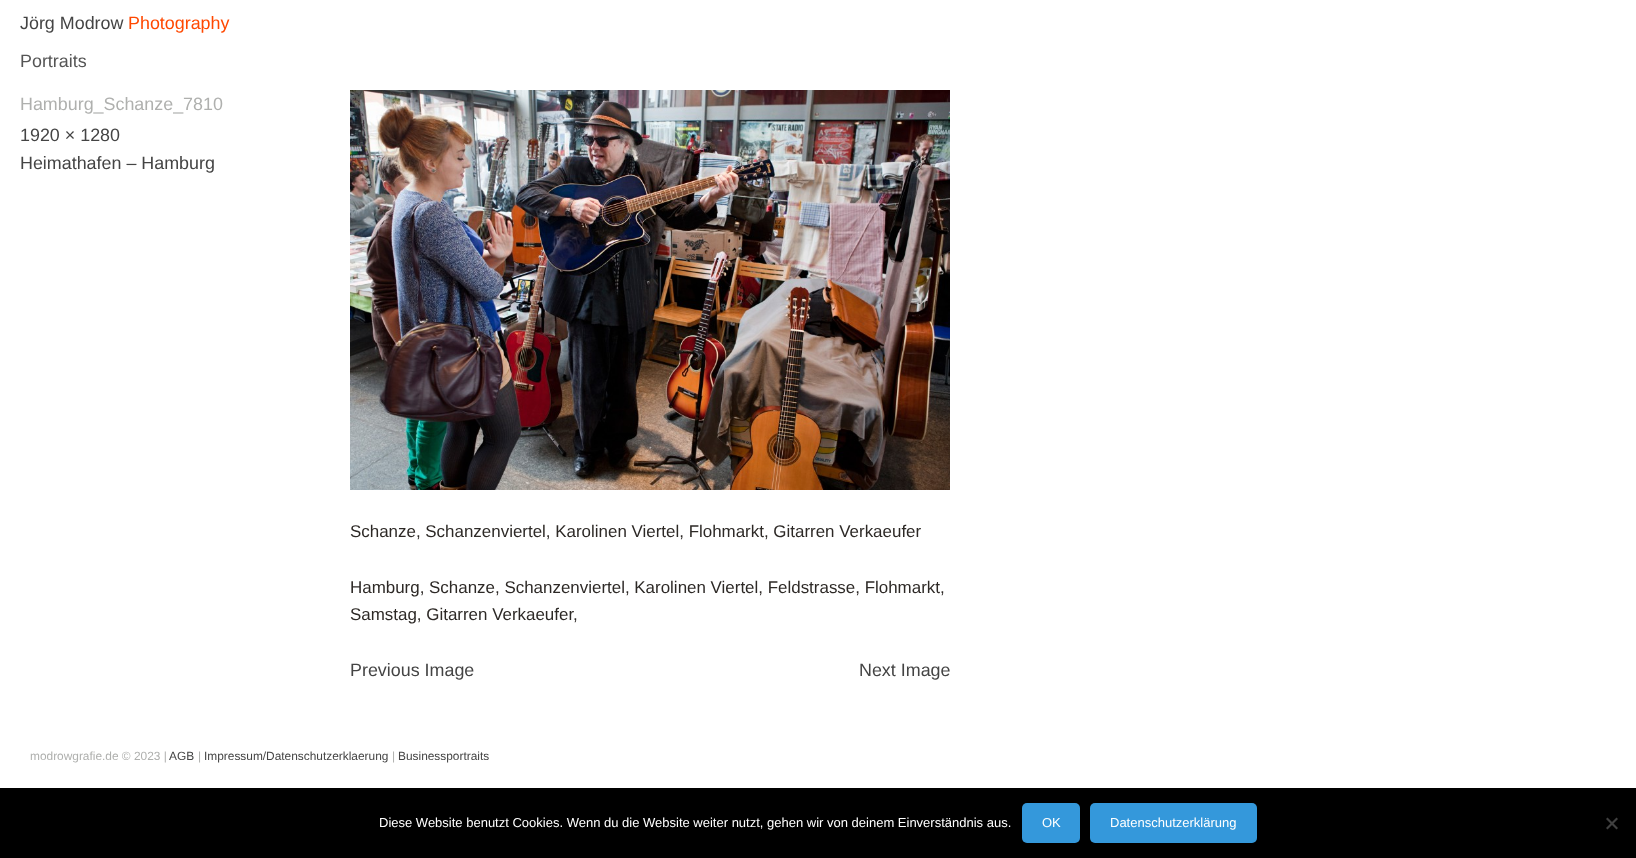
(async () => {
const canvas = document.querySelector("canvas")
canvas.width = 1636
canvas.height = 858
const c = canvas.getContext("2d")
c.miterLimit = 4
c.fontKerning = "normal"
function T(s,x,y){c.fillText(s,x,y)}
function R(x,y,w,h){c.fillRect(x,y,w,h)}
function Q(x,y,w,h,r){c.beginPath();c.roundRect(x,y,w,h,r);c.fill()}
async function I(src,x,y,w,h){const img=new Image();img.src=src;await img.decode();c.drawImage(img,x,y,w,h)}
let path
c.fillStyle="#fff"
R(0,0,1636,858)
c.font="17.9px Liberation Sans"
c.fillStyle="#444"
T("Jörg Modrow",20,29)
c.fillStyle="#ff4800"
T("Photography",128,29)
c.fillStyle="#555"
T("Portraits",20,67)
c.fillStyle="#afb0ae"
T("Hamburg_Schanze_7810",20,110)
c.fillStyle="#444"
T("1920 × 1280",20,141)
T("Heimathafen – Hamburg",20,169)
await I("1.png",350,90,600,400)
c.font="16.95px Liberation Sans"
c.fillStyle="#2d2926"
T("Schanze, Schanzenviertel, Karolinen Viertel, Flohmarkt, Gitarren Verkaeufer",350,537)
T("Hamburg, Schanze, Schanzenviertel, Karolinen Viertel, Feldstrasse, Flohmarkt,",350,593)
T("Samstag, Gitarren Verkaeufer,",350,620)
c.font="17.9px Liberation Sans"
c.fillStyle="#444"
T("Previous Image",350,676)
T("Next Image",859,676)
c.font="11.9px Liberation Sans"
c.fillStyle="#afb0ae"
T("modrowgrafie.de © 2023 |",30,760)
c.fillStyle="#444"
T("AGB",169,760)
c.fillStyle="#afb0ae"
T("|",198,760)
c.fillStyle="#444"
T("Impressum/Datenschutzerklaerung",204,760)
c.fillStyle="#afb0ae"
T("|",392,760)
c.fillStyle="#444"
T("Businessportraits",398,760)
c.fillStyle="#000"
R(0,788,1636,70)
c.font="13px Liberation Sans"
c.fillStyle="#fff"
T("Diese Website benutzt Cookies. Wenn du die Website weiter nutzt, gehen wir von deinem Einverständnis aus.",379,827)
c.fillStyle="#3498db"
Q(1022,803,58,40,5)
c.fillStyle="#fff"
T("OK",1042,827)
c.fillStyle="#3498db"
Q(1090,803,167,40,5)
c.fillStyle="#fff"
T("Datenschutzerklärung",1110,827)
c.fillStyle="#404040"
path = new Path2D("M1616.5 817.5l1.5 1.5l-10.5 10.5l-1.5-1.5z")
c.fill(path)
path = new Path2D("M1606 819l1.5-1.5l10.5 10.5l-1.5 1.5z")
c.fill(path)
})()
